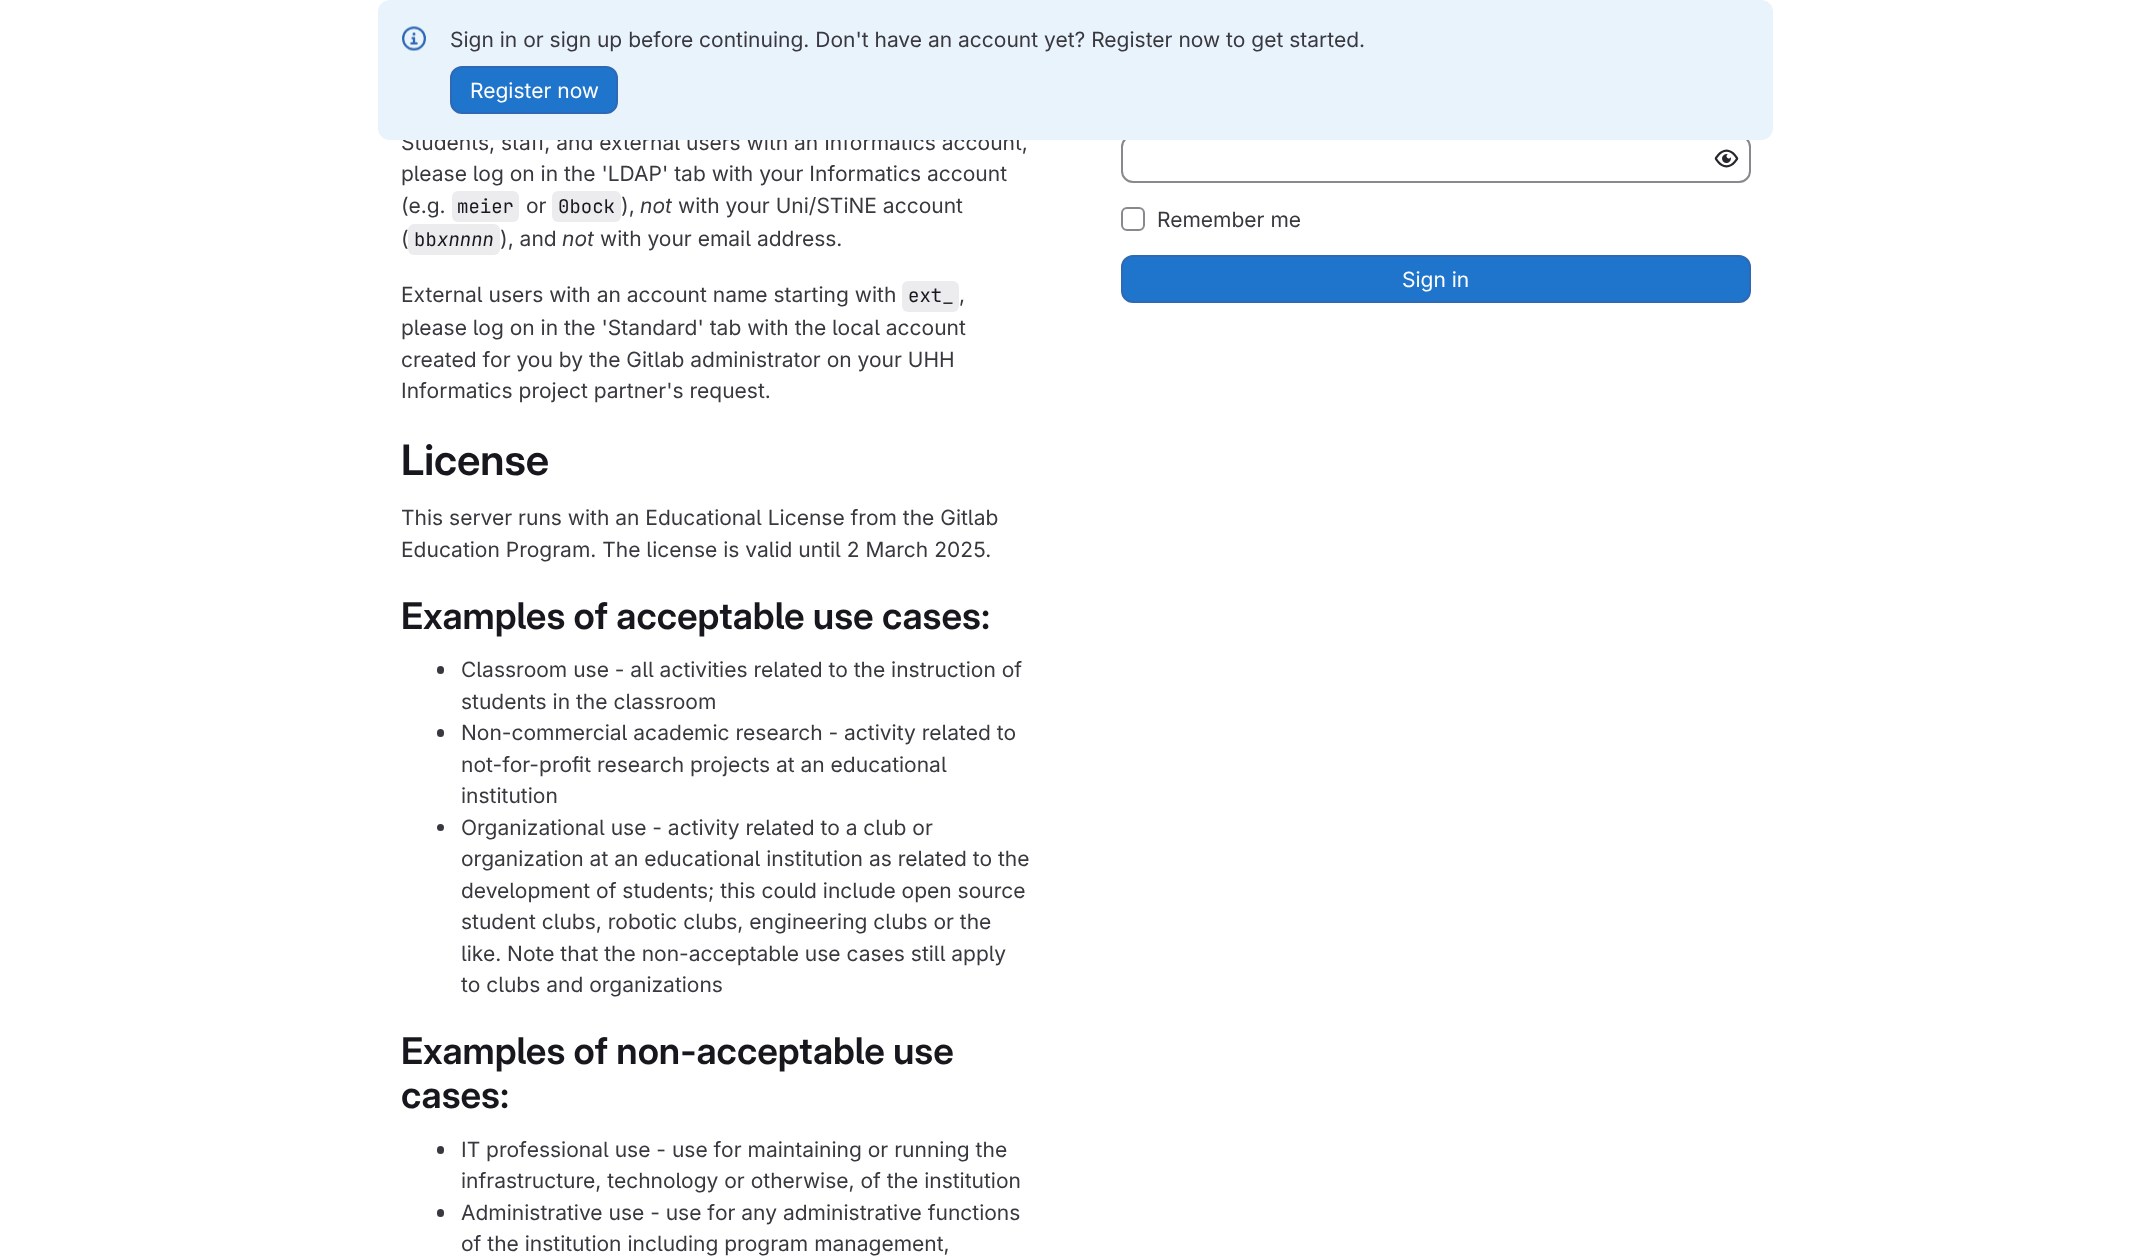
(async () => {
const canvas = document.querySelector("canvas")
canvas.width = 2150
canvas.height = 1259
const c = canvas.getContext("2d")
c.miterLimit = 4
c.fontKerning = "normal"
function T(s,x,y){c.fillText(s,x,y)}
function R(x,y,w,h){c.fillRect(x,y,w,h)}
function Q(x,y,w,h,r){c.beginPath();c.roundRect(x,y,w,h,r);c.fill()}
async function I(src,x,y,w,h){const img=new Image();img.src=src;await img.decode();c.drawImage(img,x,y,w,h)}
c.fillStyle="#fff"
R(0,0,2150,1259)
c.font="21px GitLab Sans"
c.fillStyle="#3a383f"
T("Students, staff, and external users with an Informatics account,",401,150)
c.beginPath()
c.roundRect(1122,136,628,46,11)
c.strokeStyle="#89888d"
c.lineWidth=2
c.stroke()
c.fillStyle="#e9f3fc"
Q(378,0,1395,140,12)
await I("1.png",402,26,24,25)
c.fillStyle="#3a383f"
T("Sign in or sign up before continuing. Don't have an account yet? Register now to get started.",450,47)
c.fillStyle="#1f75cb"
c.beginPath()
c.roundRect(451,67,166,46,11)
c.fill()
c.strokeStyle="#2f68b4"
c.stroke()
c.fillStyle="#fff"
T("Register now",470,98)
c.fillStyle="#3a383f"
T("please log on in the 'LDAP' tab with your Informatics account",401,181)
T("(e.g.",401,213)
c.fillStyle="#ececef"
Q(452,191,67,31,6)
c.font="19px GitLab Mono"
c.fillStyle="#18171d"
T("meier",457,213)
c.font="21px GitLab Sans"
c.fillStyle="#3a383f"
T("or",526,213)
c.fillStyle="#ececef"
Q(552,191,69,31,6)
c.font="19px GitLab Mono"
c.fillStyle="#18171d"
T("0bock",558,213)
c.font="21px GitLab Sans"
c.fillStyle="#3a383f"
T("),",621,213)
c.font="italic 21px GitLab Sans"
T("not",640,213)
c.font="21px GitLab Sans"
T("with your Uni/STiNE account",678,213)
T("(",401,246)
c.fillStyle="#ececef"
c.beginPath()
c.roundRect(408,224,29,31,[6,0,0,6])
c.fill()
c.font="19px GitLab Mono"
c.fillStyle="#18171d"
T("bb",414,246)
c.fillStyle="#ececef"
c.beginPath()
c.roundRect(437,224,63,31,[0,6,6,0])
c.fill()
c.font="italic 19px GitLab Mono"
c.fillStyle="#18171d"
T("xnnnn",437,246)
c.font="21px GitLab Sans"
c.fillStyle="#3a383f"
T("), and",500,246)
c.font="italic 21px GitLab Sans"
T("not",562,246)
c.font="21px GitLab Sans"
T("with your email address.",600,246)
T("External users with an account name starting with",401,302)
c.fillStyle="#ececef"
Q(902,281,57,31,6)
c.font="19px GitLab Mono"
c.fillStyle="#18171d"
T("ext_",908,302)
c.font="21px GitLab Sans"
c.fillStyle="#3a383f"
T(",",959,302)
T("please log on in the 'Standard' tab with the local account",401,335)
T("created for you by the Gitlab administrator on your UHH",401,367)
T("Informatics project partner's request.",401,398)
c.font="600 42px GitLab Sans"
c.fillStyle="#18171d"
T("License",401,475)
c.font="21px GitLab Sans"
c.fillStyle="#3a383f"
T("This server runs with an Educational License from the Gitlab",401,525)
T("Education Program. The license is valid until 2 March 2025.",401,557)
c.font="600 36.75px 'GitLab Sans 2'"
c.fillStyle="#18171d"
T("Examples of acceptable use cases:",401,629)
c.fillStyle="#3a383f"
Q(437,666,7,8,3.5)
c.font="21px GitLab Sans"
T("Classroom use - all activities related to the instruction of",461,677)
T("students in the classroom",461,709)
Q(437,729,7,8,3.5)
T("Non-commercial academic research - activity related to",461,740)
T("not-for-profit research projects at an educational",461,772)
T("institution",461,803)
c.beginPath()
c.arc(440.5,827.5,3.5,0,7)
c.fill()
T("Organizational use - activity related to a club or",461,835)
T("organization at an educational institution as related to the",461,866)
T("development of students; this could include open source",461,898)
T("student clubs, robotic clubs, engineering clubs or the",461,929)
T("like. Note that the non-acceptable use cases still apply",461,961)
T("to clubs and organizations",461,992)
c.font="600 36.75px 'GitLab Sans 2'"
c.fillStyle="#18171d"
T("Examples of non-acceptable use",401,1064)
T("cases:",401,1108)
c.fillStyle="#3a383f"
Q(437,1146,7,8,3.5)
c.font="21px GitLab Sans"
T("IT professional use - use for maintaining or running the",461,1157)
T("infrastructure, technology or otherwise, of the institution",461,1188)
Q(437,1209,7,8,3.5)
T("Administrative use - use for any administrative functions",461,1220)
T("of the institution including program management,",461,1251)
await I("2.png",1714,149,25,19)
c.beginPath()
c.roundRect(1122,208,22,22,5)
c.strokeStyle="#89888d"
c.stroke()
T("Remember me",1157,227)
c.fillStyle="#1f75cb"
c.beginPath()
c.roundRect(1122,256,628,46,11)
c.fill()
c.strokeStyle="#2f68b4"
c.stroke()
c.fillStyle="#fff"
T("Sign in",1402,287)
})()
